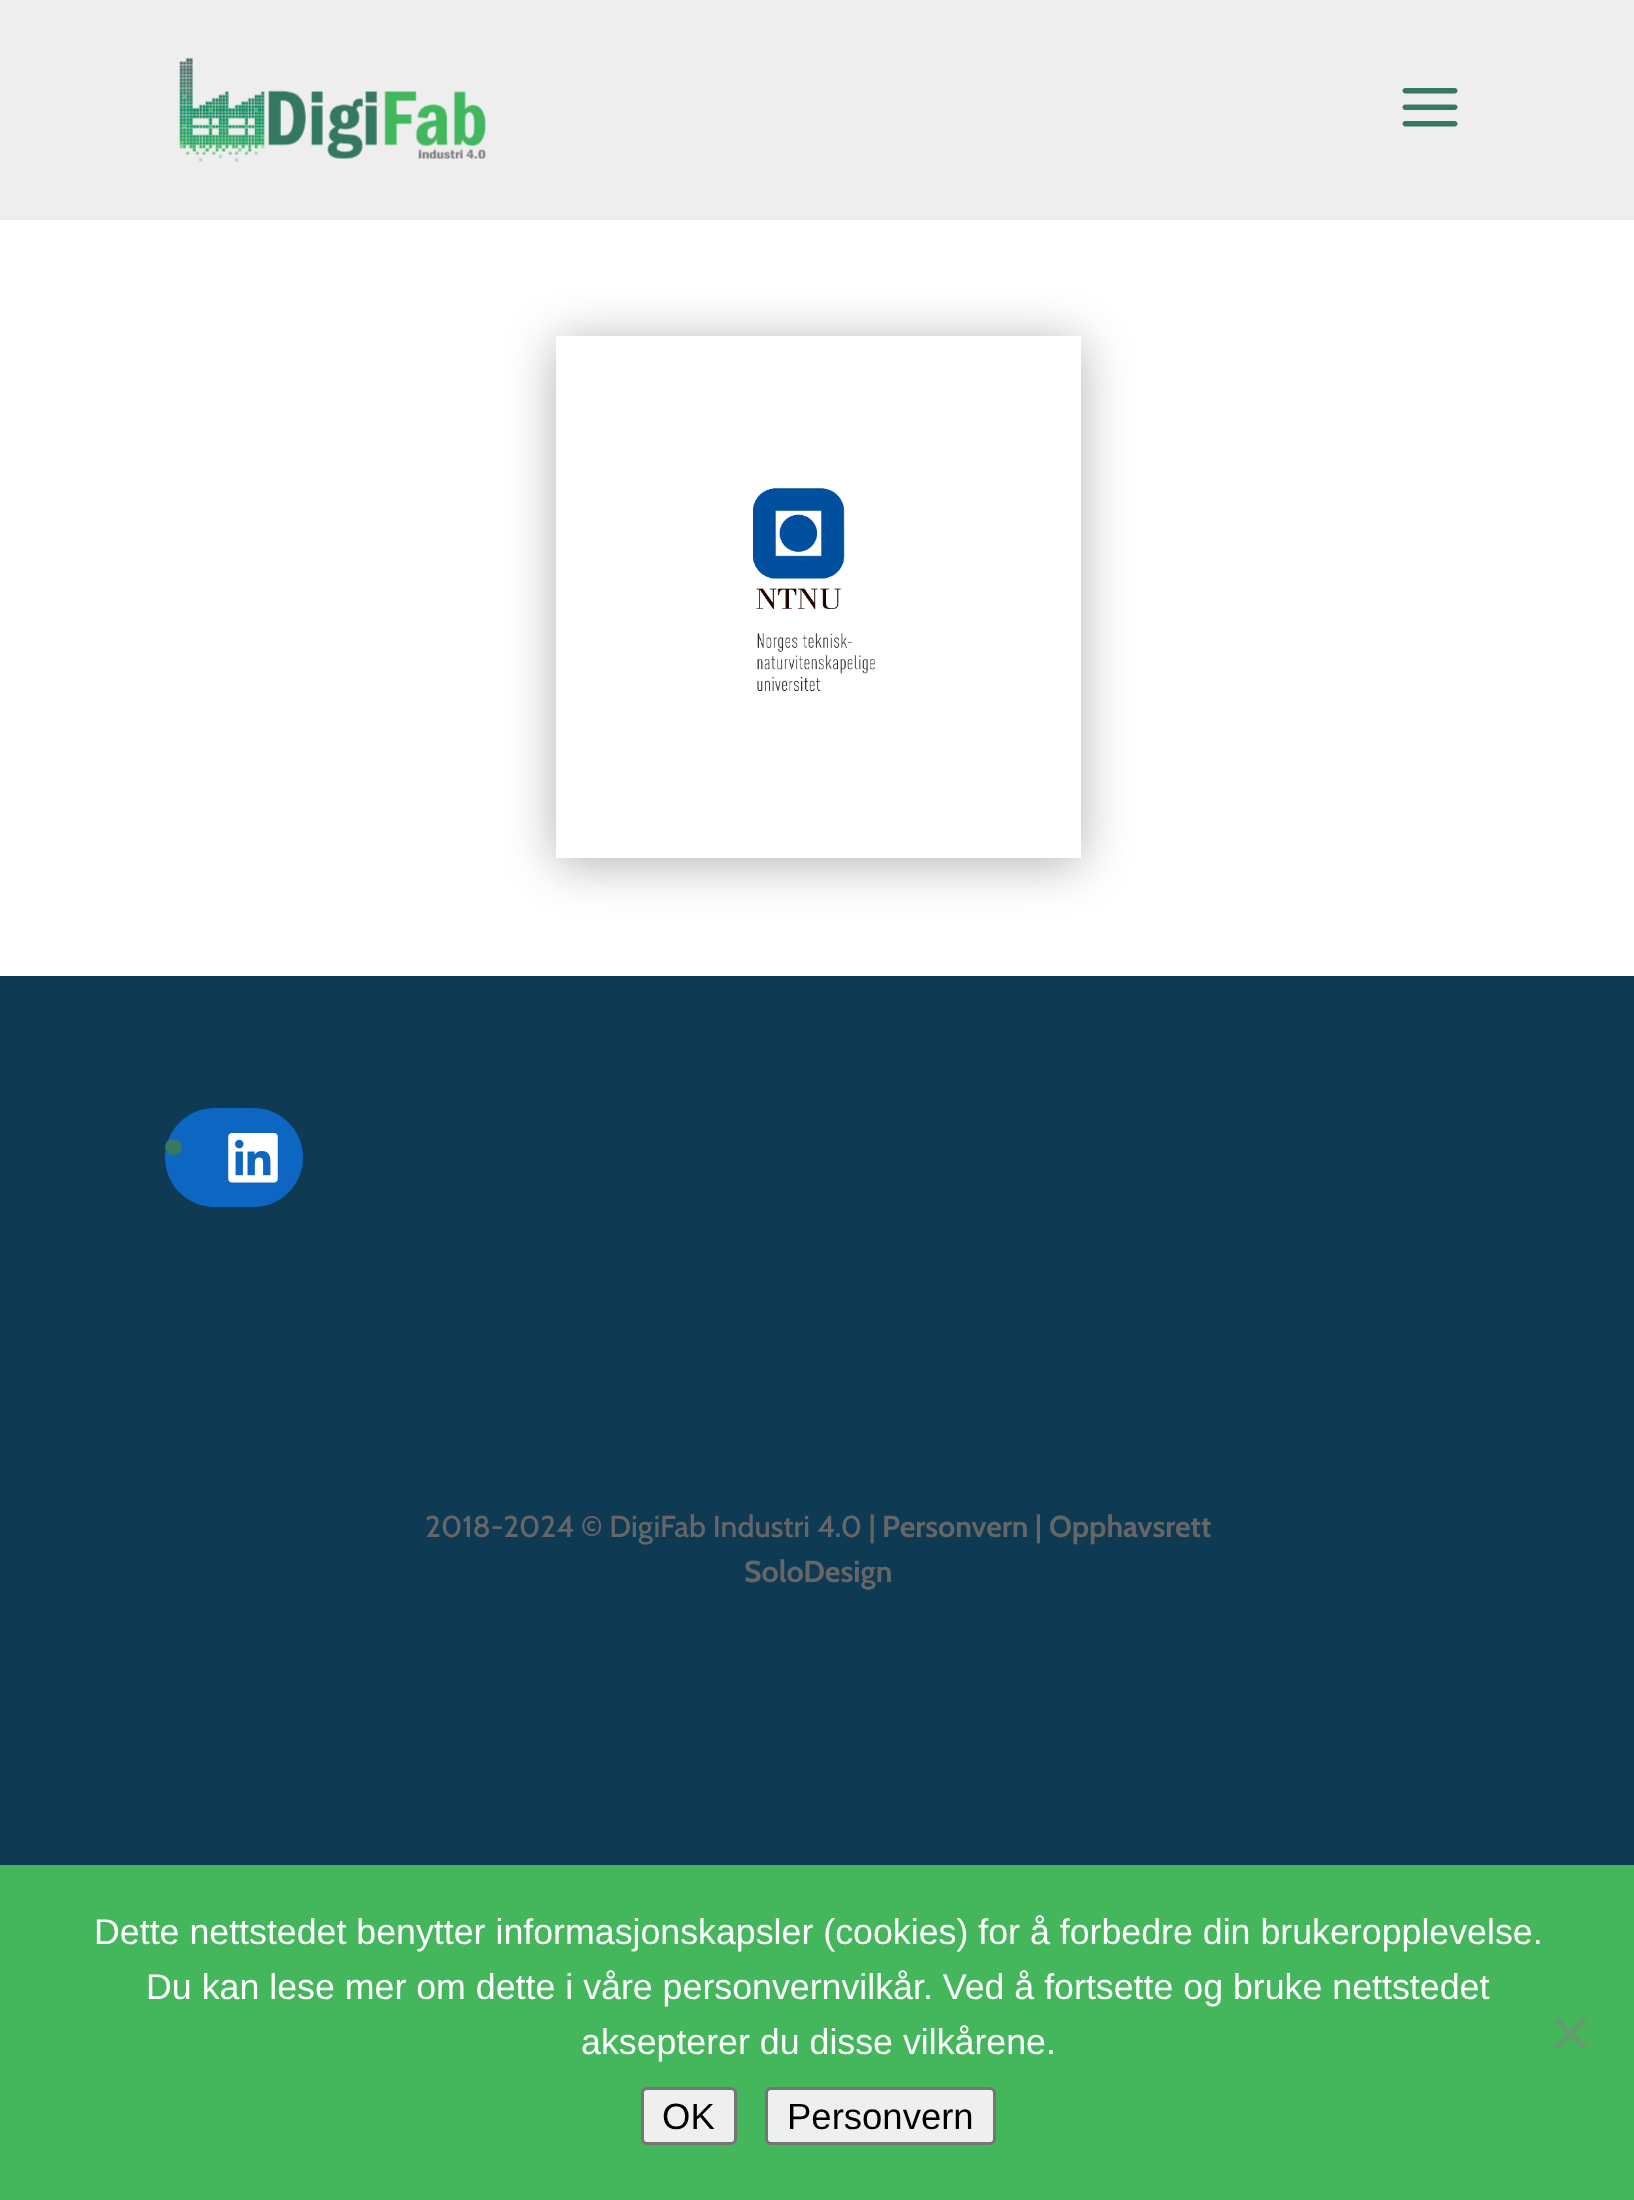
(async () => {
const canvas = document.querySelector("canvas")
canvas.width = 1634
canvas.height = 2200
const c = canvas.getContext("2d")
c.miterLimit = 4
c.fontKerning = "normal"
function T(s,x,y){c.fillText(s,x,y)}
function R(x,y,w,h){c.fillRect(x,y,w,h)}
function Q(x,y,w,h,r){c.beginPath();c.roundRect(x,y,w,h,r);c.fill()}
async function I(src,x,y,w,h){const img=new Image();img.src=src;await img.decode();c.drawImage(img,x,y,w,h)}
let path
c.fillStyle="#0e3a53"
R(0,0,1634,2200)
c.fillStyle="#eee"
R(0,0,1634,220)
await I("1.png",179,57,307,105)
await I("2.png",1402,88,56,39)
c.fillStyle="#fff"
R(0,220,1634,756)
c.save()
path = new Path2D("M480 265h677v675h-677zm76 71h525v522h-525z")
c.clip(path,"evenodd")
c.fillStyle="#0000004d"
c.filter="blur(25px)"
c.beginPath()
c.rect(556,341,525,523)
c.fill()
c.filter="none"
c.restore()
await I("3.png",753,337,328,521)
c.fillStyle="#0d66c2"
Q(165,1108,138,99,49.5)
c.fillStyle="#377862"
Q(165,1139,17,16,8)
await I("4.png",228,1133,50,50)
c.font="500 30.25px Cabin"
c.fillStyle="#666"
T("2018-2024 © DigiFab Industri 4.0 |",425,1537)
c.font="bold 30.25px Cabin"
T("Personvern",882,1537)
c.font="500 30.25px Cabin"
T("|",1035,1537)
c.font="bold 30.25px Cabin"
T("Opphavsrett",1049,1537)
T("SoloDesign",744,1582)
c.fillStyle="#44b75d"
R(0,1865,1634,335)
c.font="35.75px Liberation Sans"
c.fillStyle="#fff"
T("Dette nettstedet benytter informasjonskapsler (cookies) for å forbedre din brukeropplevelse.",94,1944)
T("Du kan lese mer om dette i våre personvernvilkår. Ved å fortsette og bruke nettstedet",146,1999)
T("aksepterer du disse vilkårene.",581,2054)
c.fillStyle="#629c6f"
path = new Path2D("M1583 2017l4 4l-29.5 29l-4-3.5z")
c.fill(path)
path = new Path2D("M1553.5 2021l4-4l29.5 29.5l-4 3.5z")
c.fill(path)
c.fillStyle="#efefef"
c.beginPath()
c.roundRect(642.5,2088.5,93,55,4.5)
c.fill()
c.strokeStyle="#767676"
c.lineWidth=3
c.stroke()
c.font="36.5px Liberation Sans"
c.fillStyle="#000"
T("OK",662,2129)
c.fillStyle="#efefef"
c.beginPath()
c.roundRect(766.5,2088.5,228,55,4.5)
c.fill()
c.stroke()
c.fillStyle="#000"
T("Personvern",787,2129)
})()
